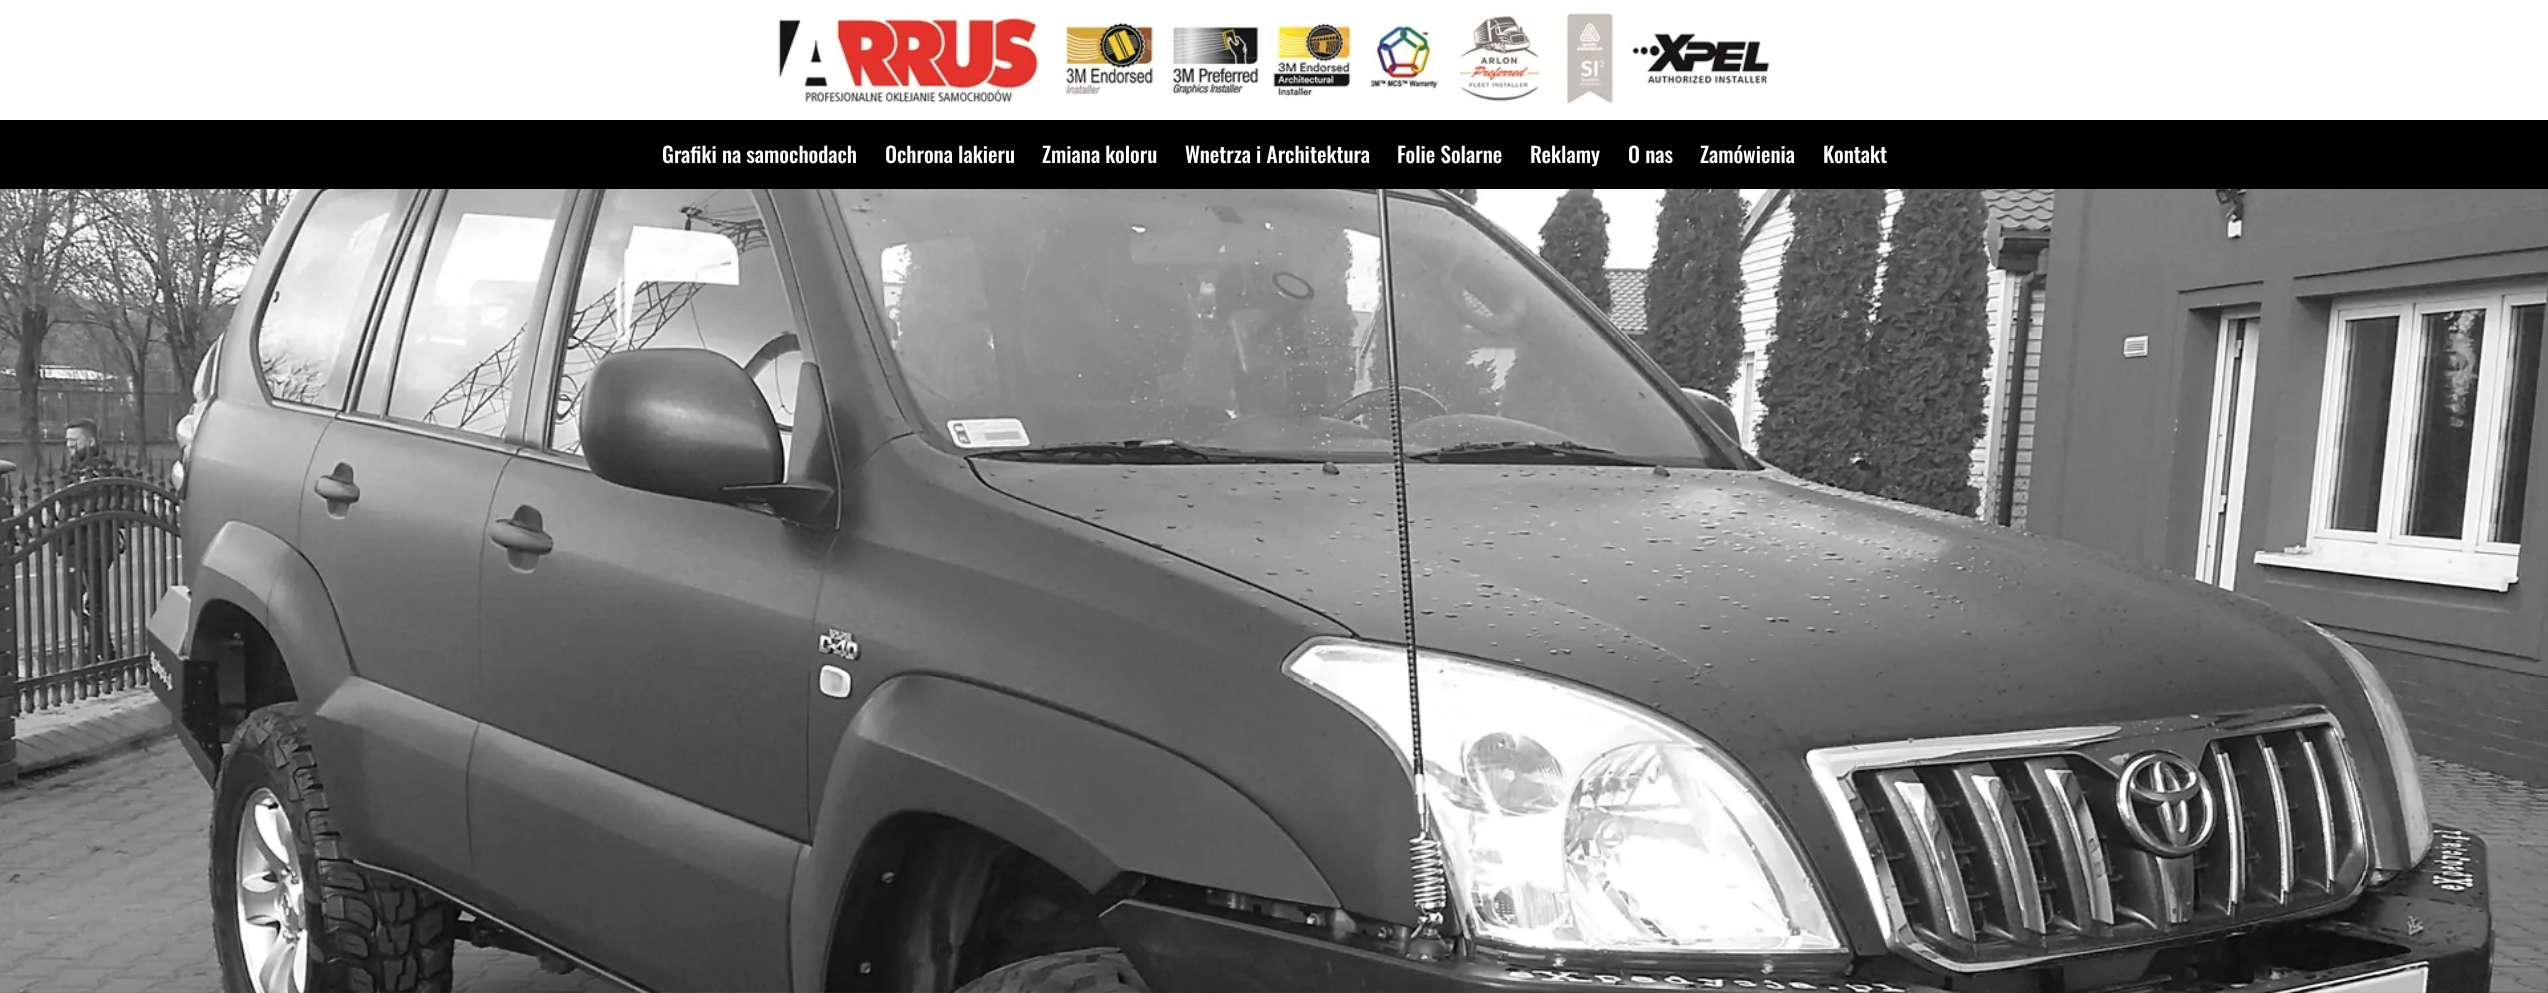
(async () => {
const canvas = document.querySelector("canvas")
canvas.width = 2548
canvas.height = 993
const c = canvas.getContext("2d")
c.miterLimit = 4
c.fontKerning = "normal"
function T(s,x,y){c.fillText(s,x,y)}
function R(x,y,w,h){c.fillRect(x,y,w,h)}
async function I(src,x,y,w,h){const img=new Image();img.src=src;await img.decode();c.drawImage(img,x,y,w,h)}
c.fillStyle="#fff"
R(0,0,2548,993)
await I("1.png",0,992,2548,1)
await I("2.png",775,13,995,91)
c.fillStyle="#000"
R(0,120,2548,69)
c.font="500 21.25px Oswald"
c.fillStyle="#fff"
T("Grafiki na samochodach",662,163)
T("Ochrona lakieru",885,163)
T("Zmiana koloru",1042,163)
T("Wnetrza i Architektura",1185,163)
T("Folie Solarne",1397,163)
T("Reklamy",1530,163)
T("O nas",1628,163)
T("Zamówienia",1700,163)
T("Kontakt",1823,163)
await I("3.png",0,189,2548,804)
})()
